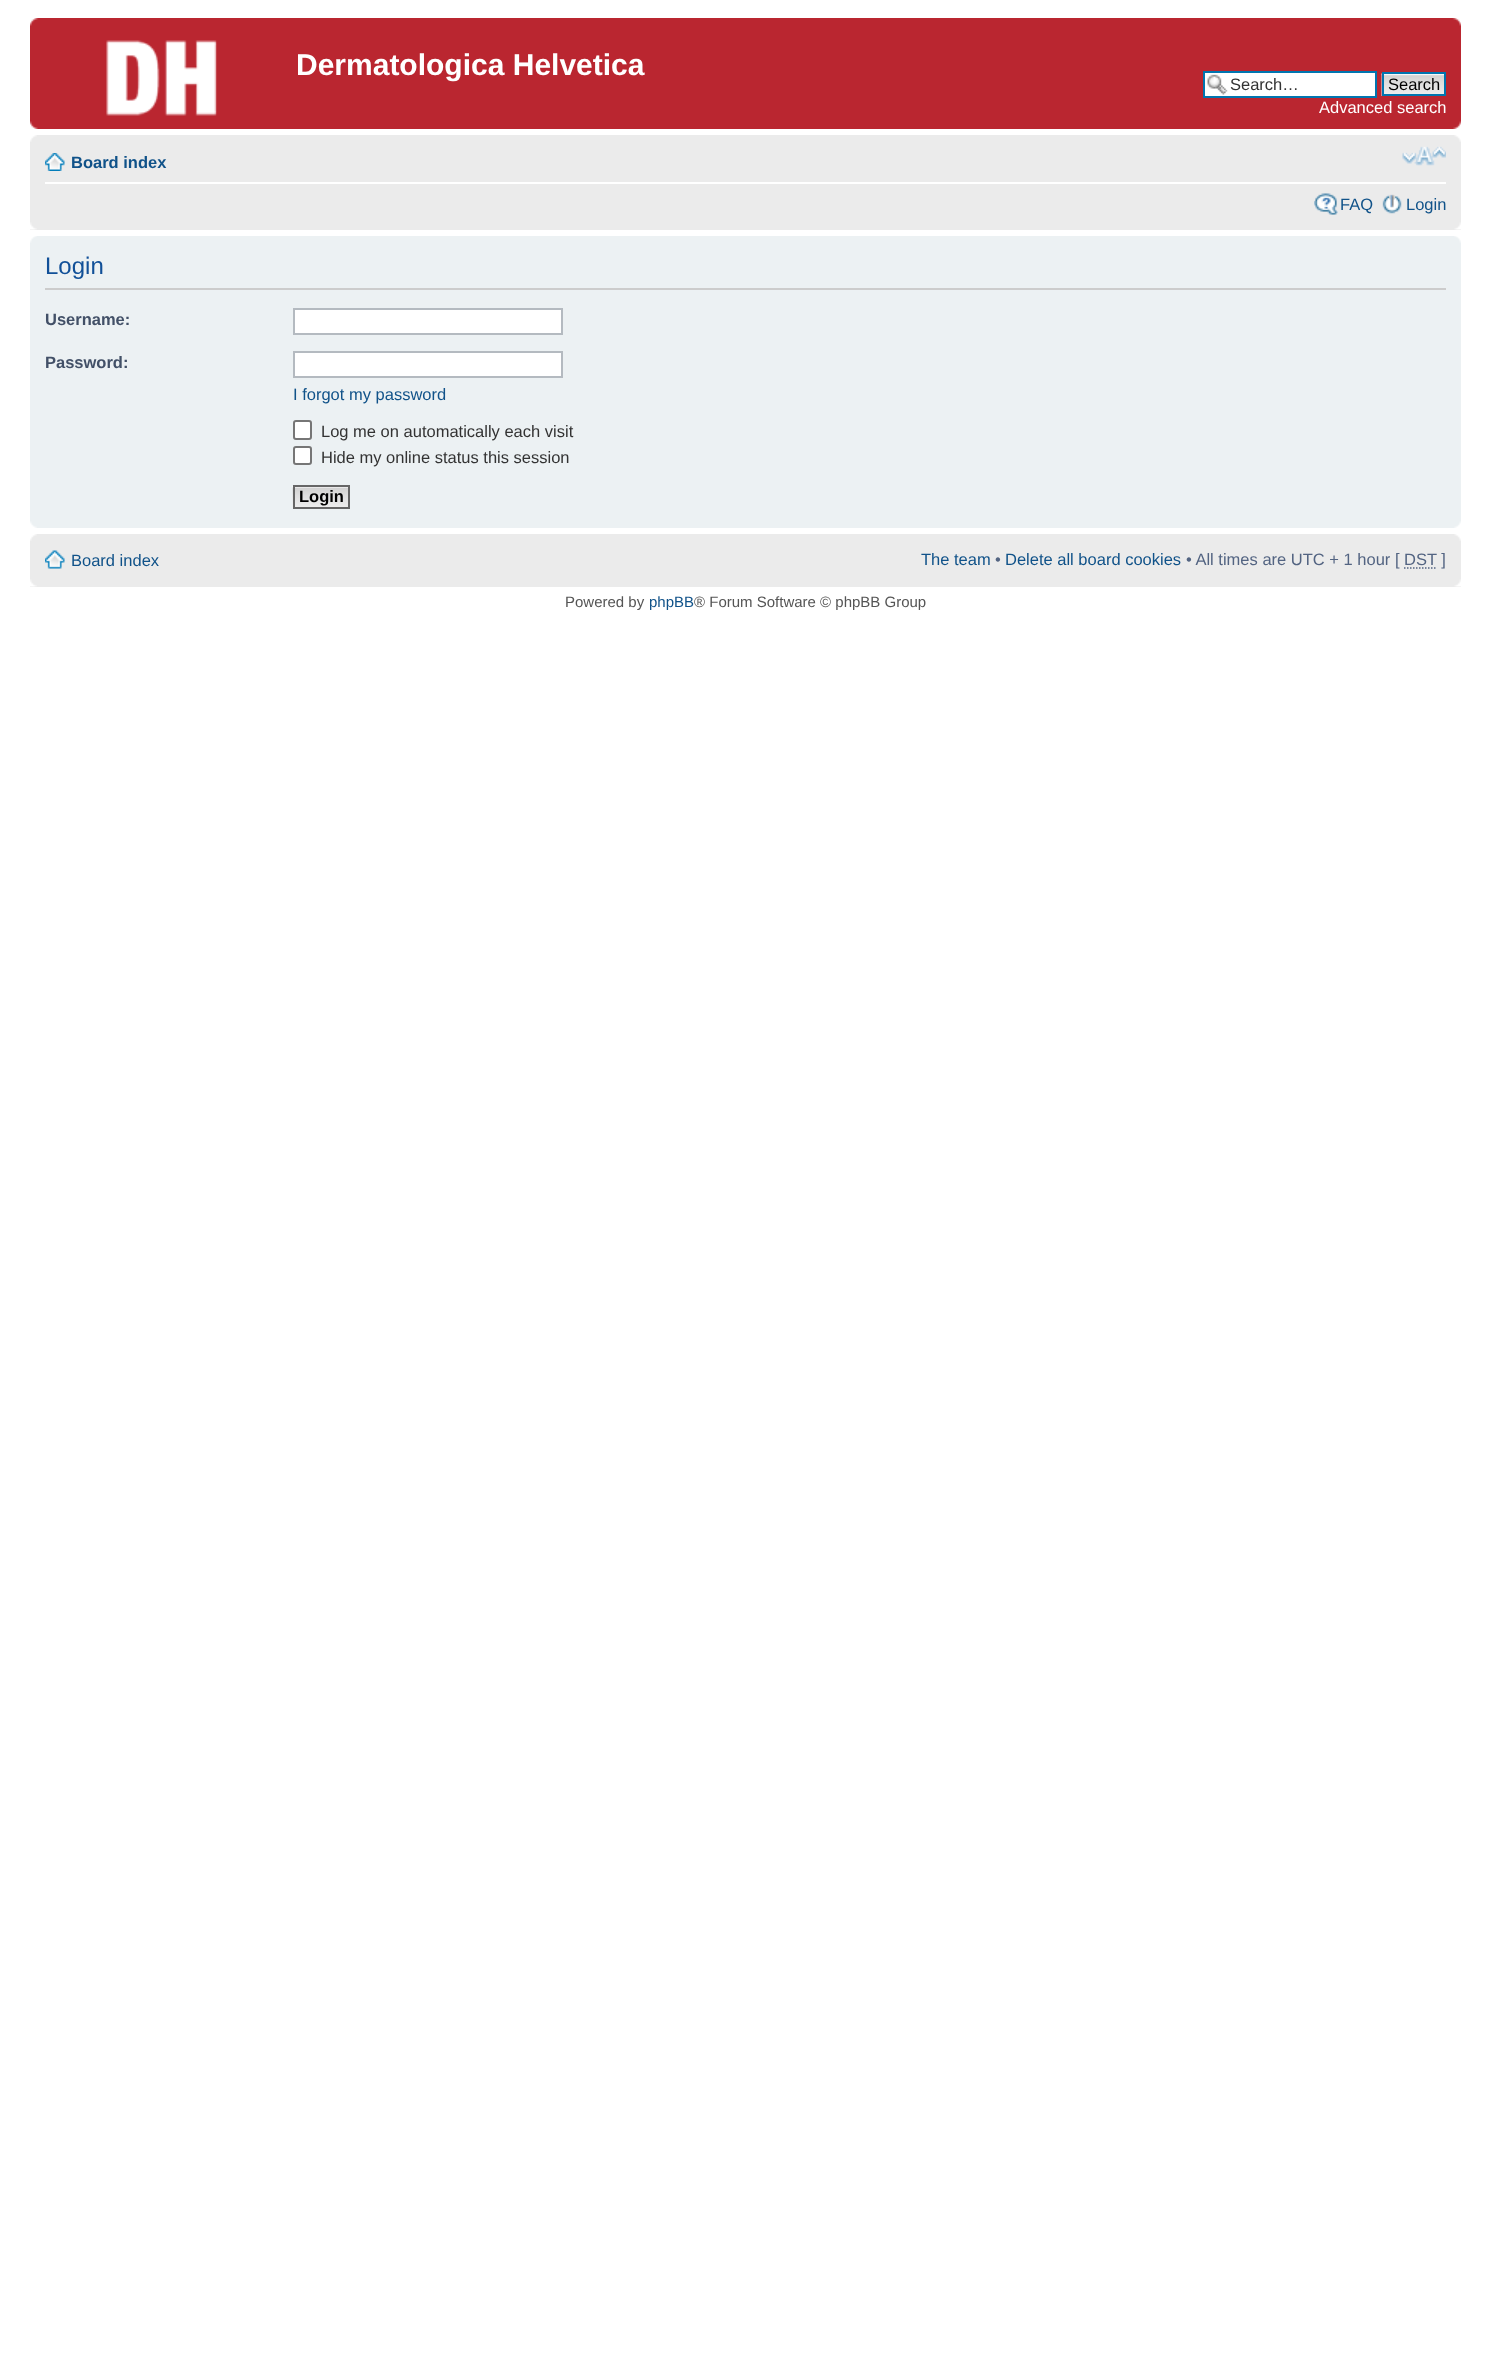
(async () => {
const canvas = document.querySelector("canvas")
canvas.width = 1490
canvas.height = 2358
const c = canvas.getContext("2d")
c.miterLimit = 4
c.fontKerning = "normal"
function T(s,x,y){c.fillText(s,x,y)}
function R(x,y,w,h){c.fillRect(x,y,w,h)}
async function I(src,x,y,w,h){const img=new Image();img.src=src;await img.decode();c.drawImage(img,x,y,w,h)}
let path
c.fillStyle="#fff"
R(0,0,1490,2358)
c.fillStyle="#ba2630"
R(30,18,1431,111)
await I("1.png",30,18,9,8)
await I("2.png",1452,18,9,8)
await I("3.png",106,40,111,76)
c.font="bold 30px Liberation Sans"
c.fillStyle="#fff"
T("Dermatologica Helvetica",296,75)
R(1205,73,170,23)
await I("4.png",1207,74,21,21)
c.strokeStyle="#0075b0"
c.lineWidth=2
c.strokeRect(1204,72,172,25)
c.font="16.5px Liberation Sans"
c.fillStyle="#333"
T("Search…",1230,90)
await I("5.png",1381,73,63,23)
c.strokeRect(1383,73,62,22)
c.fillStyle="#000"
T("Search",1388,90)
c.fillStyle="#fff"
T("Advanced search",1319,113)
await I("6.png",30,121,8,8)
await I("7.png",1453,121,8,8)
c.fillStyle="#ebebeb"
R(30,135,1431,95)
await I("8.png",30,135,7,7)
await I("9.png",1454,135,7,7)
c.fillStyle="#fff"
R(45,182,1401,2)
await I("10.png",45,153,20,18)
c.font="bold 16.5px Liberation Sans"
c.fillStyle="#105289"
T("Board index",71,168)
await I("11.png",1402,146,44,20)
await I("12.png",1314,193,24,22)
c.font="16.5px Liberation Sans"
T("FAQ",1340,210)
await I("13.png",1382,194,20,20)
T("Login",1406,210)
await I("14.png",30,222,7,8)
await I("15.png",1454,222,7,8)
c.fillStyle="#ecf1f3"
R(30,236,1431,292)
await I("16.png",30,236,7,7)
await I("17.png",1454,236,7,7)
c.fillStyle="#ccc"
R(45,288,1401,2)
c.font="24px Liberation Sans"
c.fillStyle="#115098"
T("Login",45,274)
c.font="bold 16.5px Liberation Sans"
c.fillStyle="#425067"
T("Username:",45,325)
c.fillStyle="#fff"
c.beginPath()
c.rect(294,309,268,25)
c.fill()
c.strokeStyle="#b4bac0"
c.stroke()
c.fillStyle="#425067"
T("Password:",45,368)
c.fillStyle="#fff"
c.beginPath()
c.rect(294,352,268,25)
c.fill()
c.stroke()
c.font="16.5px Liberation Sans"
c.fillStyle="#105289"
T("I forgot my password",293,400)
c.fillStyle="#fff"
c.beginPath()
c.roundRect(294,421,17,18,2)
c.fill()
c.strokeStyle="#767676"
c.stroke()
c.fillStyle="#333"
T("Log me on automatically each visit",321,437)
c.fillStyle="#fff"
c.beginPath()
c.roundRect(294,447,17,17,2)
c.fill()
c.stroke()
c.fillStyle="#333"
T("Hide my online status this session",321,463)
await I("18.png",292,486,56,23)
c.strokeStyle="#666"
c.strokeRect(294,486,55,22)
c.font="bold 16.5px Liberation Sans"
c.fillStyle="#000"
T("Login",299,502)
await I("19.png",30,521,7,7)
await I("20.png",1454,521,7,7)
c.fillStyle="#ebebeb"
R(30,534,1431,53)
await I("8.png",30,534,7,7)
await I("9.png",1454,534,7,7)
await I("21.png",45,550,20,19)
c.font="16.5px Liberation Sans"
c.fillStyle="#105289"
T("Board index",71,566)
T("The team",921,565)
c.fillStyle="#536482"
T("•",995,565)
c.fillStyle="#105289"
T("Delete all board cookies",1005,565)
c.fillStyle="#536482"
T("• All times are UTC + 1 hour [ DST ]",1186,565)
path = new Path2D("M1404 568h33")
c.strokeStyle="#536482"
c.lineWidth=1.5
c.setLineDash([1.5,1.5])
c.stroke(path)
await I("14.png",30,579,7,8)
await I("15.png",1454,579,7,8)
c.font="15px Liberation Sans"
c.fillStyle="#555"
T("Powered by",565,607)
c.fillStyle="#105289"
T("phpBB",649,607)
c.fillStyle="#555"
T("® Forum Software © phpBB Group",694,607)
})()
